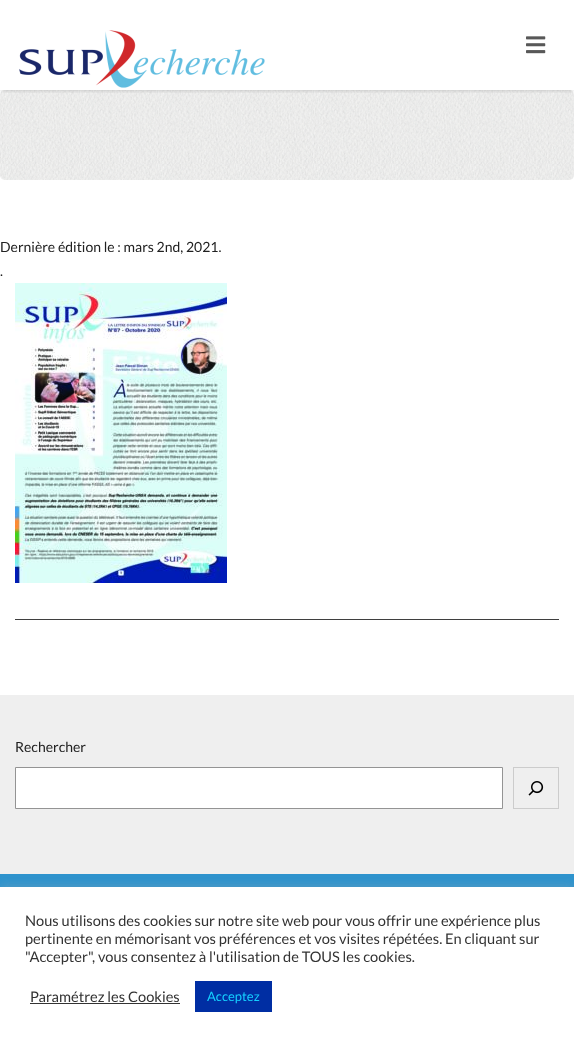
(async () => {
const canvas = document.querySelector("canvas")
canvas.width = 574
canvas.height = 1042
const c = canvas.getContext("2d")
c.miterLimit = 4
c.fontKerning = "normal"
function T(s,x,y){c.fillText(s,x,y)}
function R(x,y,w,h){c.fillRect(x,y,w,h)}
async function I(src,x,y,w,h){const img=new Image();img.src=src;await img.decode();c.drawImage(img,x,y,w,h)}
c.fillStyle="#fff"
R(0,0,574,1042)
await I("3.png",0,90,574,90)
c.save()
c.beginPath()
c.rect(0,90,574,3)
c.clip()
c.fillStyle="#00000033"
c.filter="blur(2.5px)"
c.beginPath()
c.rect(0,0,574,90)
c.fill()
c.filter="none"
c.restore()
await I("1.png",19,30,246,58)
await I("2.png",526,36,20,18)
c.font="14px Lato"
c.fillStyle="#212121"
T("Dernière édition le : mars 2nd, 2021.",0,252)
T(".",0,276)
c.fillStyle="#3f3f3f"
R(15,619,544,1)
await I("4.png",15,283,212,300)
c.fillStyle="#efefef"
R(0,695,574,179)
c.fillStyle="#212121"
T("Rechercher",15,752)
c.fillStyle="#fff"
c.beginPath()
c.rect(15.5,767.5,487,41)
c.fill()
c.strokeStyle="#949494"
c.stroke()
c.strokeStyle="#ccc"
c.strokeRect(513.5,767.5,45,41)
await I("5.png",528,781,16,15)
c.fillStyle="#2e93cd"
R(0,874,574,13)
c.fillStyle="#acabab4d"
c.filter="blur(5px)"
c.beginPath()
c.rect(0,886,574,155)
c.fill()
c.filter="none"
c.fillStyle="#fff"
R(0,887,574,155)
c.font="14.65px Lato"
c.fillStyle="#333"
T("Nous utilisons des cookies sur notre site web pour vous offrir une expérience plus",25,926)
T("pertinente en mémorisant vos préférences et vos visites répétées. En cliquant sur",25,944)
T("\"Accepter\", vous consentez à l'utilisation de TOUS les cookies.",25,962)
T("Paramétrez les Cookies",30,1002)
R(30,1003,150,1)
c.fillStyle="#002ea3"
R(195,981,77,31)
c.font="13px Lato"
c.fillStyle="#14d0ff"
T("Acceptez",207,1001)
})()
